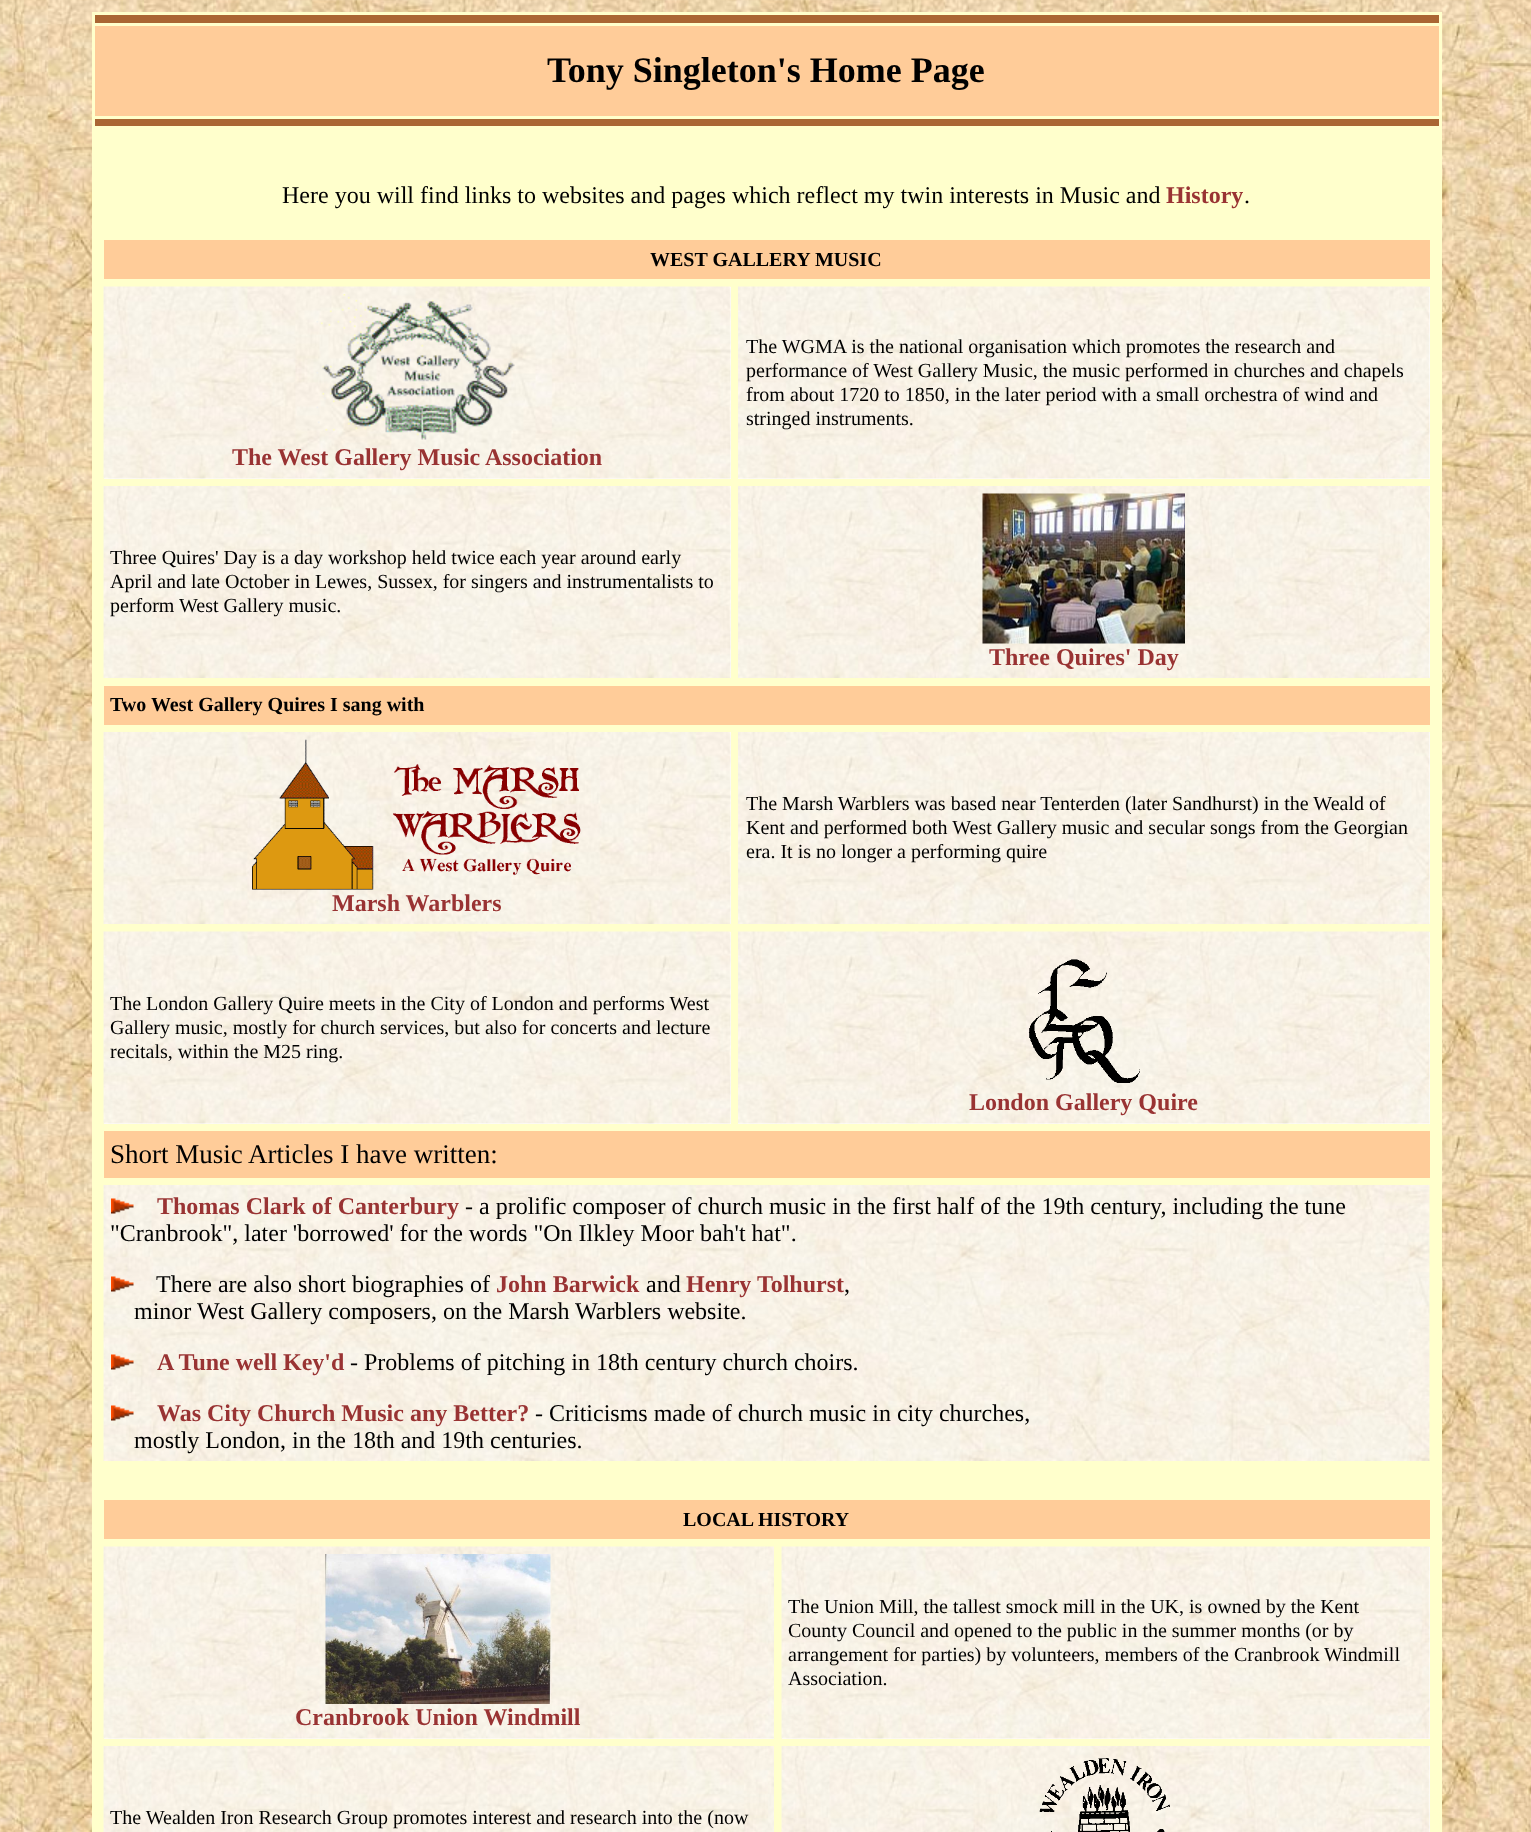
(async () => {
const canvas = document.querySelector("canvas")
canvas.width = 1531
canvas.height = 1832
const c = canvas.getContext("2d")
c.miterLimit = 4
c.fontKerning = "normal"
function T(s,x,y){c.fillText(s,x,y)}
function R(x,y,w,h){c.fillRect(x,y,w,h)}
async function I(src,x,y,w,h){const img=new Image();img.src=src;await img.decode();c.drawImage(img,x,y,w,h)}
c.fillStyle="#fff"
R(0,0,1531,1832)
await I("1.png",0,0,1531,1832)
c.fillStyle="#ffc"
R(92,12,1350,1820)
c.fillStyle="#a63"
R(95,15,1344,8)
c.fillStyle="#fc9"
R(95,26,1344,90)
c.font="bold 36px Liberation Serif"
c.fillStyle="#000"
T("Tony Singleton's Home Page",547,82)
c.fillStyle="#a63"
R(95,119,1344,7)
c.font="24px Liberation Serif"
c.fillStyle="#000"
T("Here you will find links to websites and pages which reflect my twin interests in Music and",282,203)
c.font="bold 24px Liberation Serif"
c.fillStyle="#933"
T("History",1166,203)
c.font="24px Liberation Serif"
c.fillStyle="#000"
T(".",1244,203)
c.fillStyle="#fc9"
R(104,240,1326,39)
c.font="bold 20px Liberation Serif"
c.fillStyle="#000"
T("WEST GALLERY MUSIC",650,266)
c.fillStyle="#fff"
R(738,287,692,192)
await I("2.png",738,286,692,193)
c.font="20px Liberation Serif"
c.fillStyle="#000"
T("The WGMA is the national organisation which promotes the research and",746,353)
T("performance of West Gallery Music, the music performed in churches and chapels",746,377)
T("from about 1720 to 1850, in the later period with a small orchestra of wind and",746,401)
T("stringed instruments.",746,425)
c.fillStyle="#fff"
R(104,287,627,192)
await I("3.png",103,286,628,193)
await I("4.png",316,294,199,146)
c.font="bold 24px Liberation Serif"
c.fillStyle="#933"
T("The West Gallery Music Association",232,465)
c.fillStyle="#fff"
R(730,486,1,192)
await I("5.png",103,486,628,192)
c.font="20px Liberation Serif"
c.fillStyle="#000"
T("Three Quires' Day is a day workshop held twice each year around early",110,564)
T("April and late October in Lewes, Sussex, for singers and instrumentalists to",110,588)
T("perform West Gallery music.",110,612)
c.fillStyle="#fff"
R(1429,486,1,192)
await I("6.png",738,486,692,192)
await I("7.png",982,493,203,151)
c.font="bold 24px Liberation Serif"
c.fillStyle="#933"
T("Three Quires' Day",989,665)
c.fillStyle="#fc9"
R(104,686,1326,39)
c.font="bold 20px Liberation Serif"
c.fillStyle="#000"
T("Two West Gallery Quires I sang with",110,711)
c.fillStyle="#fff"
R(1429,732,1,192)
await I("8.png",738,732,692,192)
c.font="20px Liberation Serif"
c.fillStyle="#000"
T("The Marsh Warblers was based near Tenterden (later Sandhurst) in the Weald of",746,810)
T("Kent and performed both West Gallery music and secular songs from the Georgian",746,834)
T("era. It is no longer a performing quire",746,858)
c.fillStyle="#fff"
R(730,732,1,192)
await I("9.png",103,732,628,192)
await I("10.png",252,739,329,151)
c.font="bold 24px Liberation Serif"
c.fillStyle="#933"
T("Marsh Warblers",332,911)
c.fillStyle="#fff"
R(104,932,627,192)
await I("11.png",103,931,628,193)
c.font="20px Liberation Serif"
c.fillStyle="#000"
T("The London Gallery Quire meets in the City of London and performs West",110,1010)
T("Gallery music, mostly for church services, but also for concerts and lecture",110,1034)
T("recitals, within the M25 ring.",110,1058)
c.fillStyle="#fff"
R(738,932,692,192)
await I("12.png",738,931,692,193)
await I("13.png",1028,959,112,124)
c.font="bold 24px Liberation Serif"
c.fillStyle="#933"
T("London Gallery Quire",969,1110)
c.fillStyle="#fc9"
R(104,1131,1326,47)
c.font="27px Liberation Serif"
c.fillStyle="#000"
T("Short Music Articles I have written:",110,1163)
await I("14.png",103,1185,1327,276)
await I("15.png",111,1198,23,16)
c.font="bold 24px Liberation Serif"
c.fillStyle="#933"
T("Thomas Clark of Canterbury",157,1214)
c.font="24px Liberation Serif"
c.fillStyle="#000"
T("- a prolific composer of church music in the first half of the 19th century, including the tune",465,1214)
T("\"Cranbrook\", later 'borrowed' for the words \"On Ilkley Moor bah't hat\".",110,1241)
await I("16.png",111,1276,23,16)
T("There are also short biographies of",156,1292)
c.font="bold 24px Liberation Serif"
c.fillStyle="#933"
T("John Barwick",496,1292)
c.font="24px Liberation Serif"
c.fillStyle="#000"
T("and",646,1292)
c.font="bold 24px Liberation Serif"
c.fillStyle="#933"
T("Henry Tolhurst",686,1292)
c.font="24px Liberation Serif"
c.fillStyle="#000"
T(",",844,1292)
T("minor West Gallery composers, on the Marsh Warblers website.",134,1319)
await I("17.png",111,1354,23,16)
c.font="bold 24px Liberation Serif"
c.fillStyle="#933"
T("A Tune well Key'd",157,1370)
c.font="24px Liberation Serif"
c.fillStyle="#000"
T("- Problems of pitching in 18th century church choirs.",350,1370)
await I("18.png",111,1405,23,16)
c.font="bold 24px Liberation Serif"
c.fillStyle="#933"
T("Was City Church Music any Better?",157,1421)
c.font="24px Liberation Serif"
c.fillStyle="#000"
T("- Criticisms made of church music in city churches,",535,1421)
T("mostly London, in the 18th and 19th centuries.",134,1448)
c.fillStyle="#fc9"
R(104,1500,1326,39)
c.font="bold 20px Liberation Serif"
c.fillStyle="#000"
T("LOCAL HISTORY",683,1526)
c.fillStyle="#fff"
R(782,1547,648,192)
await I("19.png",781,1546,649,193)
c.font="20px Liberation Serif"
c.fillStyle="#000"
T("The Union Mill, the tallest smock mill in the UK, is owned by the Kent",788,1613)
T("County Council and opened to the public in the summer months (or by",788,1637)
T("arrangement for parties) by volunteers, members of the Cranbrook Windmill",788,1661)
T("Association.",788,1685)
c.fillStyle="#fff"
R(104,1738,670,1)
await I("20.png",103,1546,671,193)
await I("21.png",325,1554,226,150)
c.font="bold 24px Liberation Serif"
c.fillStyle="#933"
T("Cranbrook Union Windmill",295,1725)
await I("22.png",103,1746,671,86)
c.font="20px Liberation Serif"
c.fillStyle="#000"
T("The Wealden Iron Research Group promotes interest and research into the (now",110,1824)
c.fillStyle="#fff"
R(1429,1746,1,86)
await I("23.png",781,1746,649,86)
await I("24.png",1039,1758,131,74)
})()
